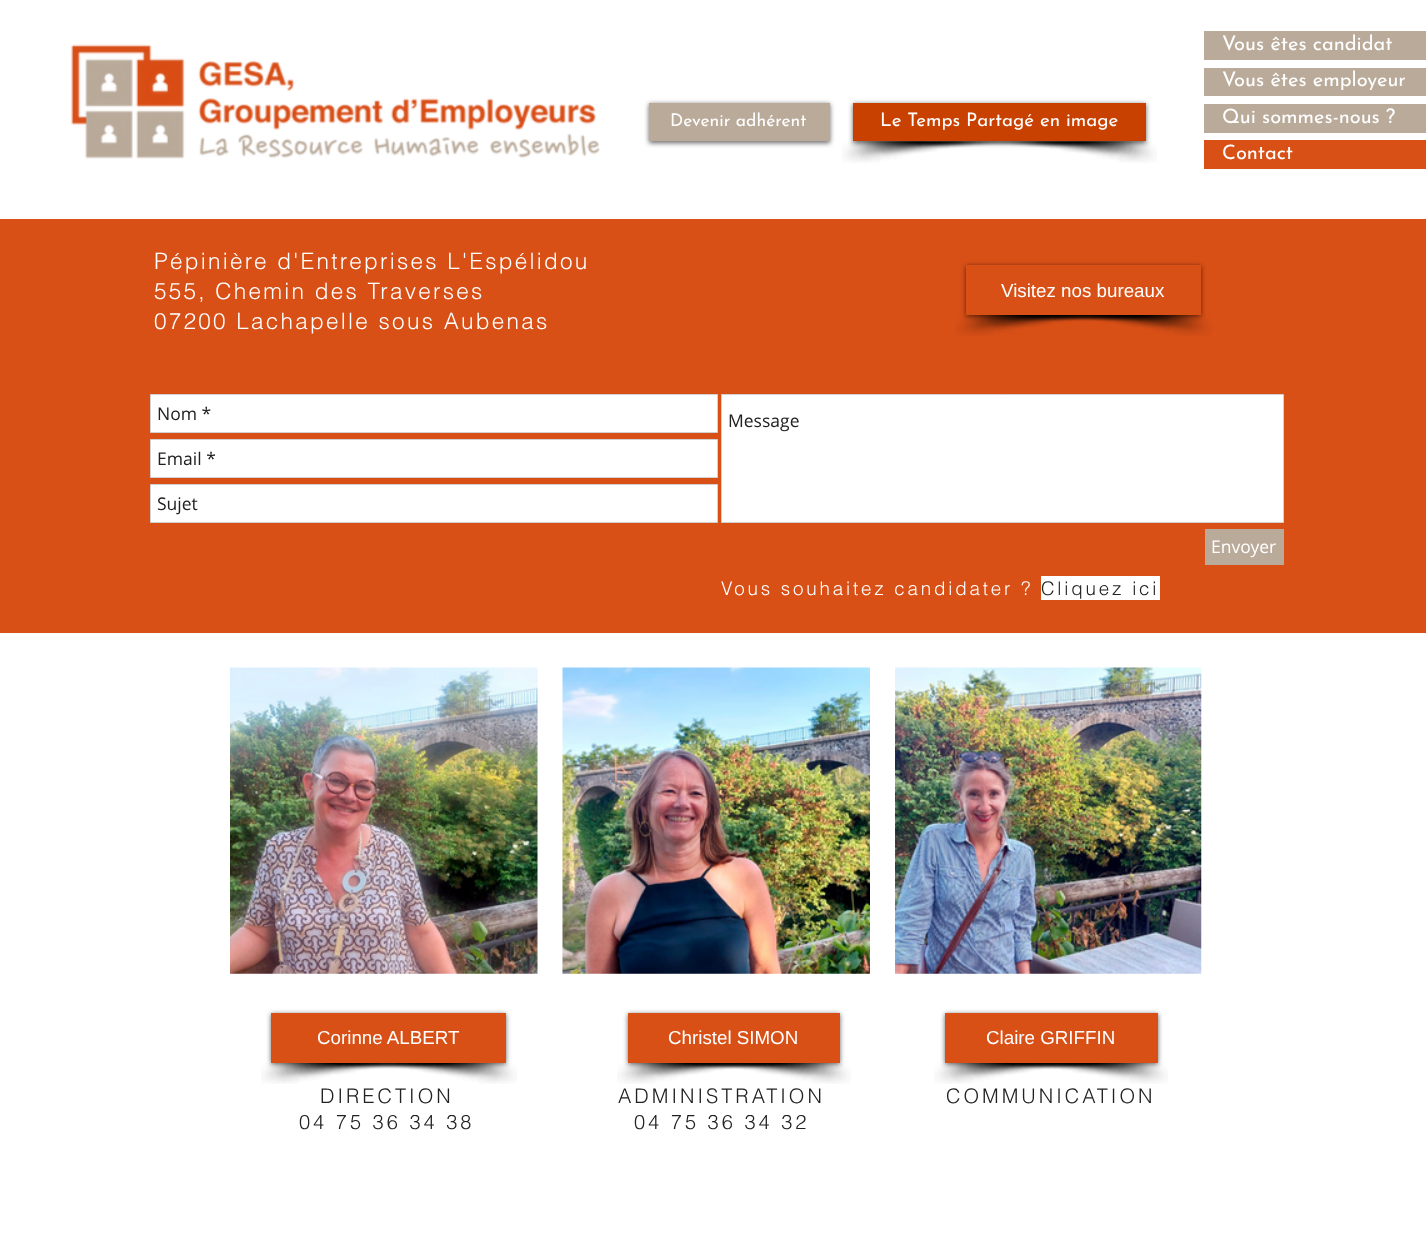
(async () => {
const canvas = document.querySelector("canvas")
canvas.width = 1426
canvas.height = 1239
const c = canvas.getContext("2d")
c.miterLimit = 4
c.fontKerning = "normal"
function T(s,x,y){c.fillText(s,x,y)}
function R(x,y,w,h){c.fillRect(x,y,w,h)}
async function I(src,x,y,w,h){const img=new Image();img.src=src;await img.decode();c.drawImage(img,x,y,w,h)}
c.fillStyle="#fff"
R(0,0,1426,1239)
await I("1.png",70,44,530,115)
c.fillStyle="#00000099"
c.filter="blur(2.5px)"
c.beginPath()
c.rect(649,104,181,39)
c.fill()
c.filter="none"
c.fillStyle="#baaa9a"
R(649,103,181,38)
c.font="100 17.5px Josefin Sans"
c.fillStyle="#fff"
T("Devenir adhérent",670,126)
await I("2.png",842,141,184,22)
await I("3.png",978,141,179,22)
c.fillStyle="#00000099"
c.filter="blur(2.5px)"
c.beginPath()
c.rect(853,104,293,39)
c.fill()
c.filter="none"
c.fillStyle="#c94100"
R(853,103,293,38)
c.font="100 18.75px Josefin Sans"
c.fillStyle="#fff"
T("Le Temps Partagé en image",880,126)
c.fillStyle="#baaa9a"
R(1204,31,222,29)
c.font="100 20px Josefin Sans"
c.fillStyle="#fff"
T("Vous êtes candidat",1222,50)
c.fillStyle="#baaa9a"
R(1204,68,222,28)
c.fillStyle="#fff"
T("Vous êtes employeur",1222,86)
c.fillStyle="#baaa9a"
R(1204,104,222,29)
c.fillStyle="#fff"
T("Qui sommes-nous ?",1222,123)
c.fillStyle="#d95017"
R(1204,140,222,29)
c.fillStyle="#fff"
T("Contact",1222,159)
c.fillStyle="#d95017"
R(0,219,1426,414)
c.letterSpacing="2.25px"
c.font="300 22.5px helvetica"
c.fillStyle="#fff"
T("Pépinière d'Entreprises L'Espélidou",154,269)
T("555, Chemin des Traverses",154,299)
T("07200 Lachapelle sous Aubenas",154,329)
await I("4.png",956,315,191,21)
await I("5.png",1054,315,158,21)
c.fillStyle="#00000099"
c.filter="blur(2.5px)"
c.beginPath()
c.rect(966,266,235,50)
c.fill()
c.filter="none"
c.fillStyle="#d95017"
R(966,265,235,50)
c.letterSpacing="0px"
c.font="18.75px Liberation Sans"
c.fillStyle="#fff"
T("Visitez nos bureaux",1001,297)
c.beginPath()
c.rect(150.5,394.5,567,38)
c.fill()
c.strokeStyle="#d1d1d1"
c.stroke()
c.font="17.5px Open Sans"
c.fillStyle="#212121"
T("Nom *",157,420)
c.fillStyle="#fff"
c.beginPath()
c.rect(721.5,394.5,562,128)
c.fill()
c.stroke()
c.fillStyle="#212121"
T("Message",728,427)
c.fillStyle="#fff"
c.beginPath()
c.rect(150.5,439.5,567,38)
c.fill()
c.stroke()
c.fillStyle="#212121"
T("Email *",157,465)
c.fillStyle="#fff"
c.beginPath()
c.rect(150.5,484.5,567,38)
c.fill()
c.stroke()
c.fillStyle="#212121"
T("Sujet",157,510)
c.fillStyle="#baaa9a"
R(1205,529,79,36)
c.fillStyle="#fff"
T("Envoyer",1211,553)
c.letterSpacing="2.8px"
c.font="300 18.75px helvetica"
T("Vous souhaitez candidater ?",721,595)
R(1041,576,119,24)
c.fillStyle="#212121"
T("Cliquez ici",1041,595)
await I("6.png",230,667,308,307)
await I("7.png",562,667,308,307)
await I("8.png",895,667,307,307)
await I("9.png",261,1063,185,21)
await I("10.png",344,1063,173,21)
c.fillStyle="#00000099"
c.filter="blur(2.5px)"
c.beginPath()
c.rect(271,1014,235,50)
c.fill()
c.filter="none"
c.fillStyle="#d95017"
R(271,1013,235,50)
c.letterSpacing="0px"
c.font="18.75px Liberation Sans"
c.fillStyle="#fff"
T("Corinne ALBERT",317,1044)
await I("11.png",617,1063,185,21)
await I("12.png",678,1063,173,21)
c.fillStyle="#00000099"
c.filter="blur(2.5px)"
c.beginPath()
c.rect(628,1014,212,50)
c.fill()
c.filter="none"
c.fillStyle="#d95017"
R(628,1013,212,50)
c.fillStyle="#fff"
T("Christel SIMON",668,1044)
await I("13.png",934,1063,186,21)
await I("14.png",996,1063,172,21)
c.fillStyle="#00000099"
c.filter="blur(2.5px)"
c.beginPath()
c.rect(945,1014,213,50)
c.fill()
c.filter="none"
c.fillStyle="#d95017"
R(945,1013,213,50)
c.fillStyle="#fff"
T("Claire GRIFFIN",986,1044)
c.letterSpacing="3px"
c.font="300 20px helvetica"
c.fillStyle="#212121"
T("DIRECTION",320,1103)
T("04 75 36 34 38",299,1129)
T("ADMINISTRATION",618,1103)
T("04 75 36 34 32",634,1129)
T("COMMUNICATION",946,1103)
})()
